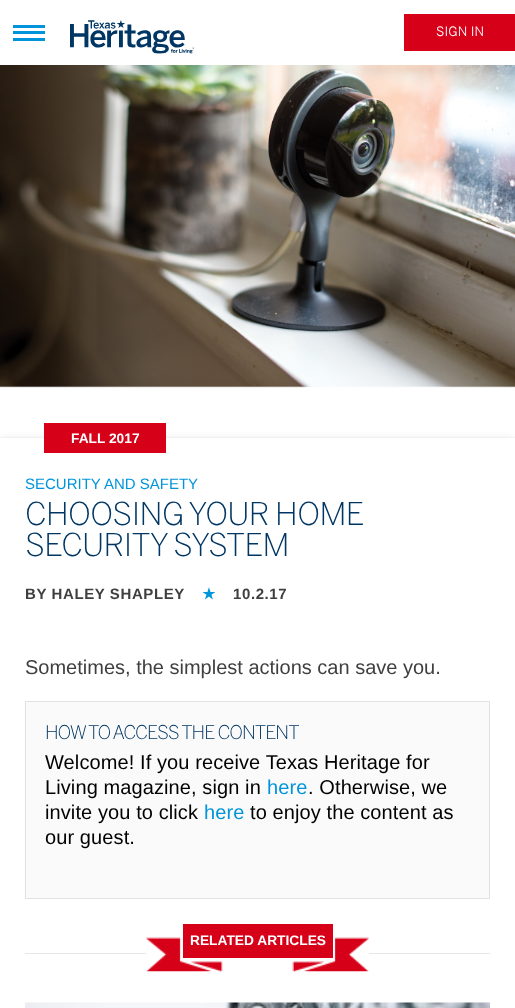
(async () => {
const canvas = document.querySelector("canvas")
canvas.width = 515
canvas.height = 1008
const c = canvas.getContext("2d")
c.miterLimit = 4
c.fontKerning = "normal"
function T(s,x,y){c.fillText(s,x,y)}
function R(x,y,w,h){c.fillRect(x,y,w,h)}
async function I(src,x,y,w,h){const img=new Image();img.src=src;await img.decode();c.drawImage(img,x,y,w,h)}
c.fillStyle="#f4f4f4"
R(0,0,515,1008)
c.fillStyle="#fff"
R(0,0,515,65)
c.fillStyle="#0095da"
R(13,25,32,3)
R(13,31,32,3)
R(13,38,32,3)
await I("1.png",70,20,124,34)
c.fillStyle="#d70019"
R(404,14,111,37)
c.letterSpacing="0.5px"
c.font="bold 12.5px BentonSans"
c.fillStyle="#fff"
T("SIGN IN",436,36)
await I("2.png",0,65,515,373)
c.fillStyle="#0000001a"
c.filter="blur(4px)"
c.beginPath()
c.rect(0,439,515,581)
c.fill()
c.filter="none"
c.fillStyle="#fff"
R(0,438,515,570)
c.fillStyle="#d70019"
R(44,423,122,30)
c.letterSpacing="0px"
c.font="bold 13.75px Liberation Sans"
c.fillStyle="#fff"
T("FALL 2017",71,443)
c.font="15px Liberation Sans"
c.fillStyle="#0095da"
T("SECURITY AND SAFETY",25,489)
c.letterSpacing="-0.6px"
c.font="300 31.25px BentonSans"
c.fillStyle="#003663"
T("CHOOSING YOUR HOME",25,525)
T("SECURITY SYSTEM",25,556)
c.letterSpacing="0.6px"
c.font="bold 15px Liberation Sans"
c.fillStyle="#3f3f3f"
T("BY HALEY SHAPLEY",25,599)
c.font="bold 15px DejaVu Sans"
c.fillStyle="#0095da"
T("★",202,599)
c.font="bold 15px Liberation Sans"
c.fillStyle="#3f3f3f"
T("10.2.17",233,599)
c.letterSpacing="0px"
c.font="20px Liberation Sans"
T("Sometimes, the simplest actions can save you.",25,674)
c.fillStyle="#fafafa"
c.beginPath()
c.rect(25.5,701.5,464,197)
c.fill()
c.strokeStyle="#e1e1e1"
c.stroke()
c.letterSpacing="-1px"
c.font="300 18.75px BentonSans"
c.fillStyle="#003663"
T("HOW TO ACCESS THE CONTENT",45,739)
c.letterSpacing="0.1px"
c.font="20px Liberation Sans"
c.fillStyle="#000"
T("Welcome! If you receive Texas Heritage for",45,769)
T("Living magazine, sign in",45,794)
c.fillStyle="#0095da"
T("here",267,794)
c.fillStyle="#000"
T(". Otherwise, we",308,794)
T("invite you to click",45,819)
c.fillStyle="#0095da"
T("here",204,819)
c.fillStyle="#000"
T("to enjoy the content as",250,819)
T("our guest.",45,844)
c.fillStyle="#d70019"
R(183,924,150,34)
c.letterSpacing="0px"
c.font="bold 13.75px Liberation Sans"
c.fillStyle="#fff"
T("RELATED ARTICLES",190,945)
await I("3.png",146,937,77,35)
await I("4.png",292,937,77,35)
c.fillStyle="#e7e7e7"
R(25,953,121,1)
R(369,953,121,1)
await I("5.png",25,1002,465,6)
})()
